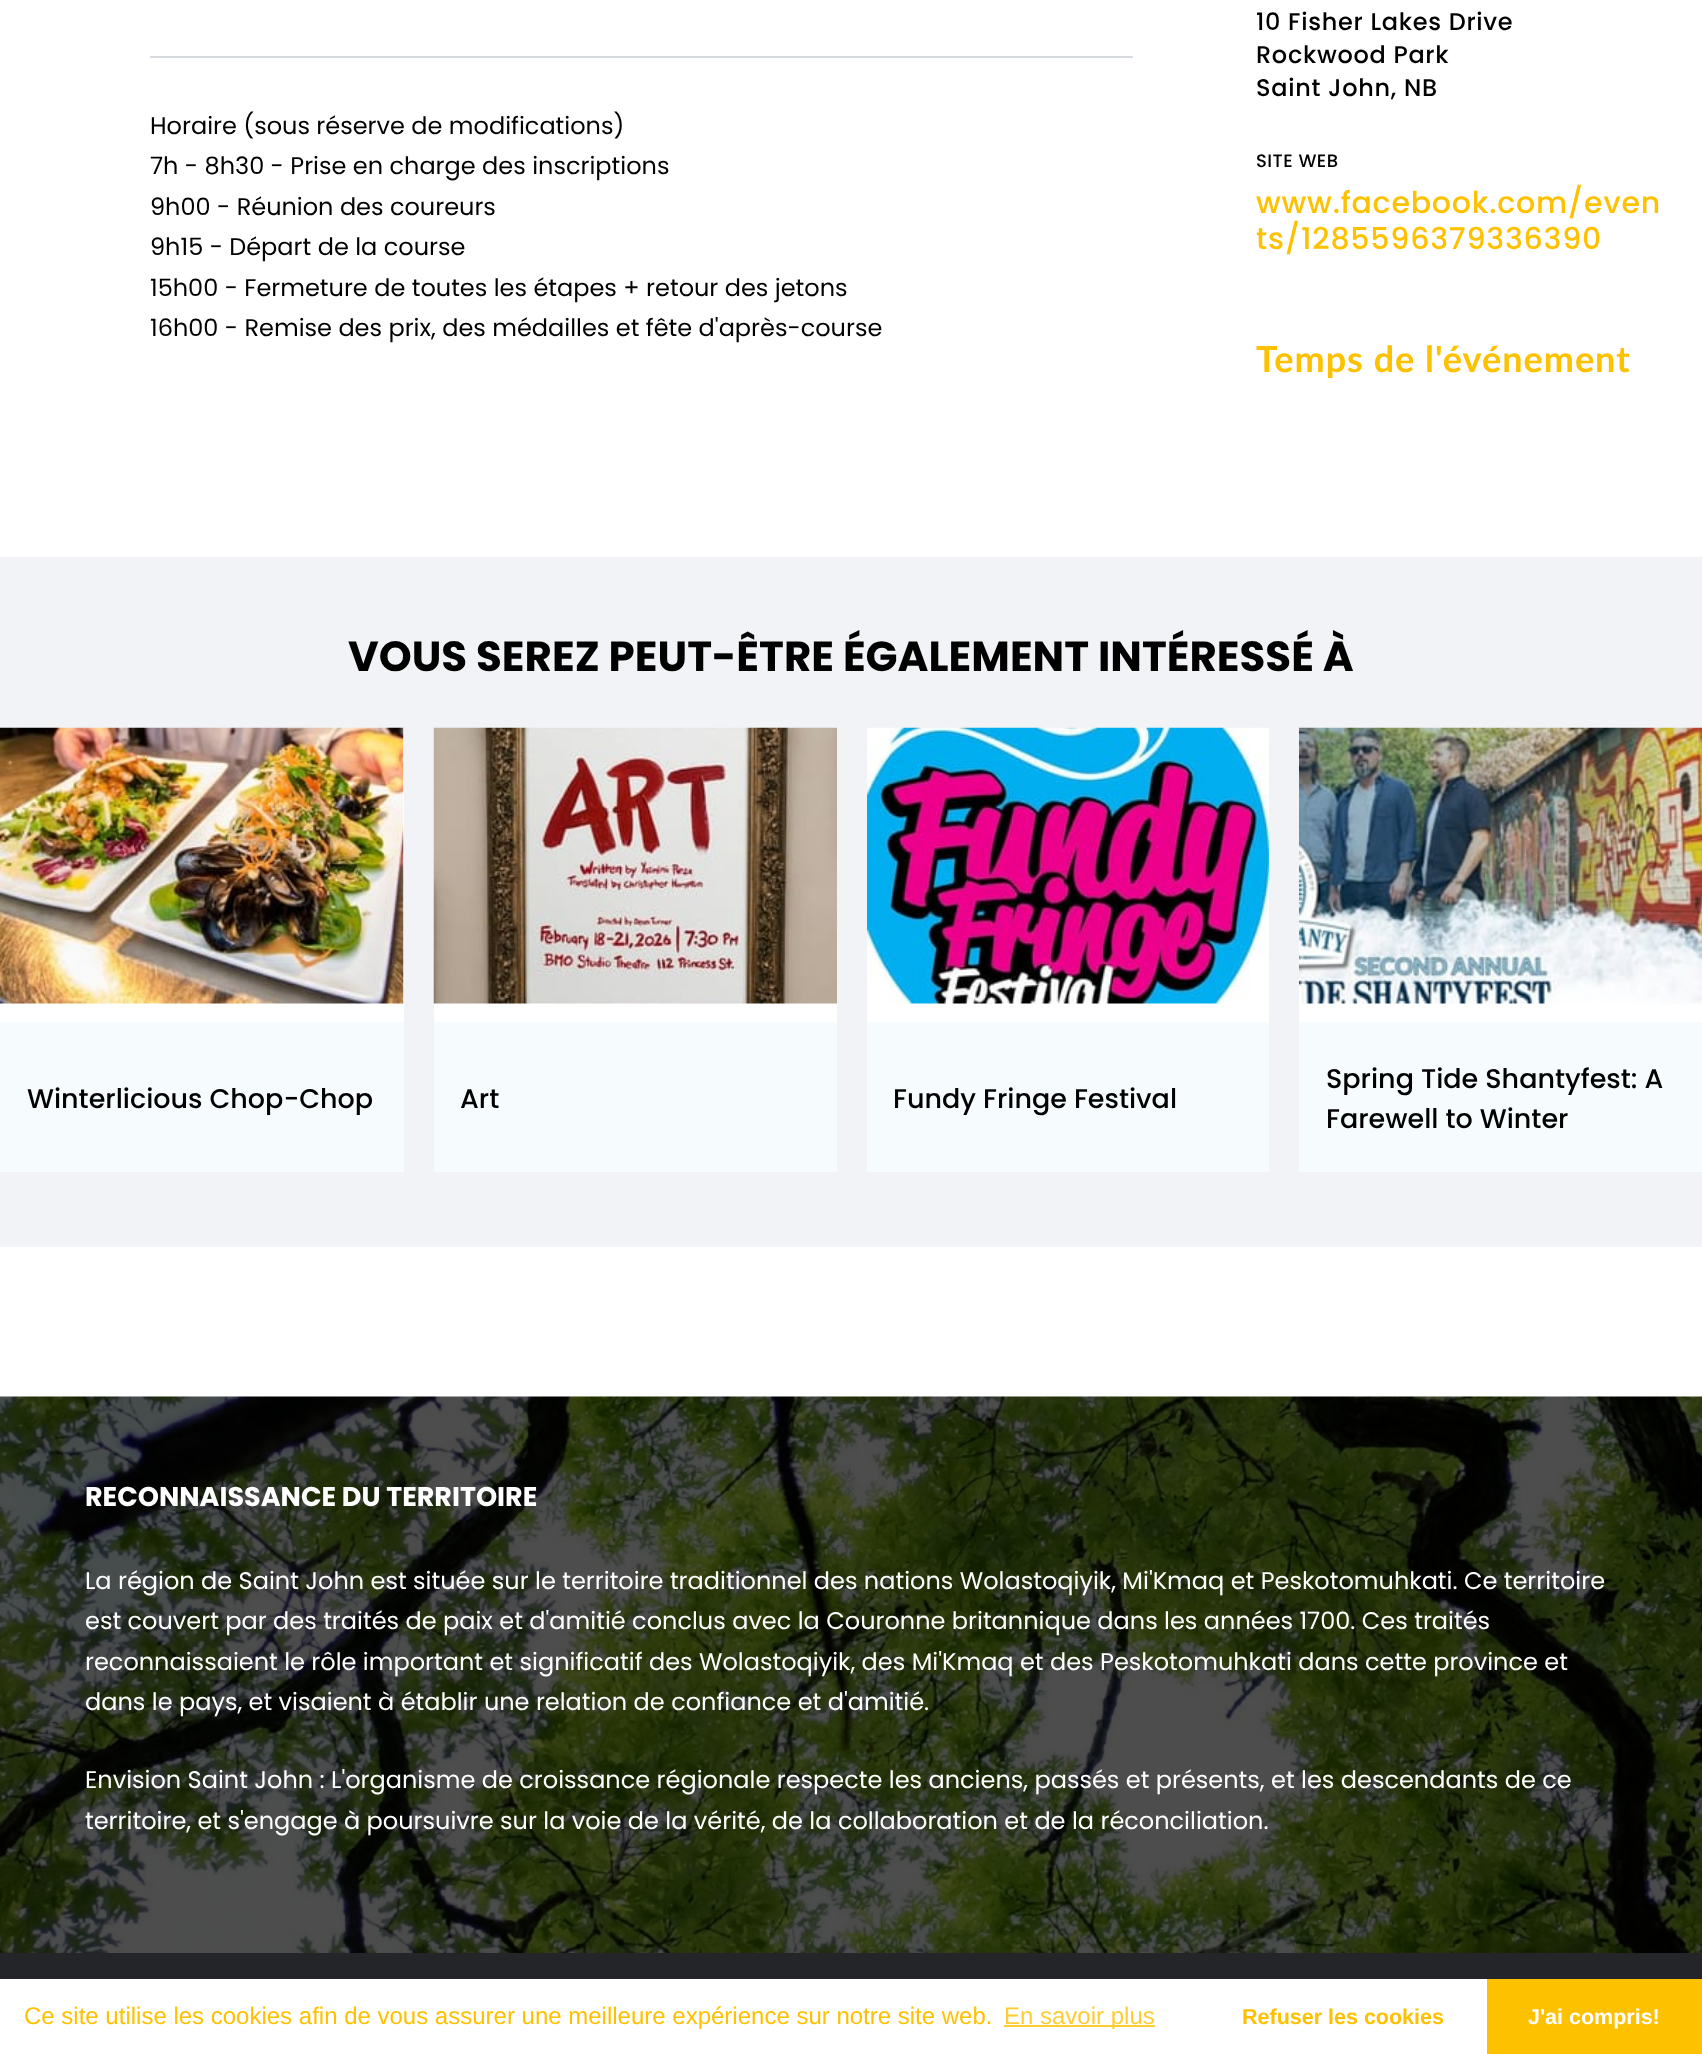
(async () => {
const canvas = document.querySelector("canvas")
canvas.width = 1702
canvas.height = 2054
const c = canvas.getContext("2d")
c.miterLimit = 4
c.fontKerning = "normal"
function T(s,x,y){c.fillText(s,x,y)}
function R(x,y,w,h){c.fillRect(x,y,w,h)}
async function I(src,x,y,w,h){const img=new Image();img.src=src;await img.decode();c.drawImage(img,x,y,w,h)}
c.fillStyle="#fff"
R(0,0,1702,2054)
c.fillStyle="#d7dade"
R(150,56,983,2)
c.font="24px Poppins"
c.fillStyle="#000"
T("Horaire (sous réserve de modifications)",150,134)
T("7h - 8h30 - Prise en charge des inscriptions",150,174)
T("9h00 - Réunion des coureurs",150,215)
T("9h15 - Départ de la course",150,255)
T("15h00 - Fermeture de toutes les étapes + retour des jetons",150,296)
T("16h00 - Remise des prix, des médailles et fête d'après-course",150,336)
c.letterSpacing="0.7px"
c.font="500 24px Poppins"
T("10 Fisher Lakes Drive",1256,30)
T("Rockwood Park",1256,63)
T("Saint John, NB",1256,96)
c.letterSpacing="0.5px"
c.font="500 18px Poppins"
T("SITE WEB",1256,167)
c.letterSpacing="0.8px"
c.font="500 30px Poppins"
c.fillStyle="#fec100"
T("www.facebook.com/even",1256,213)
T("ts/1285596379336390",1256,249)
c.letterSpacing="1px"
c.font="bold 36px Lato"
T("Temps de l'événement",1256,372)
c.fillStyle="#f1f3f6"
R(0,557,1702,690)
c.letterSpacing="0px"
c.font="bold 42px Poppins"
c.fillStyle="#000"
T("VOUS SEREZ PEUT-ÊTRE ÉGALEMENT INTÉRESSÉ À",348,671)
c.fillStyle="#fff"
R(0,728,404,294)
await I("1.png",0,727,404,277)
c.fillStyle="#f6fcfe"
R(0,1022,404,150)
c.font="500 27px Poppins"
c.fillStyle="#000"
T("Winterlicious Chop-Chop",27,1108)
c.fillStyle="#fff"
R(434,1003,403,19)
await I("2.png",433,727,404,277)
c.fillStyle="#f6fcfe"
R(434,1022,403,150)
c.fillStyle="#000"
T("Art",460,1108)
c.fillStyle="#fff"
R(867,1003,402,19)
await I("3.png",867,727,402,277)
c.fillStyle="#f6fcfe"
R(867,1022,402,150)
c.fillStyle="#000"
T("Fundy Fringe Festival",893,1108)
c.fillStyle="#fff"
R(1299,1003,403,19)
await I("4.png",1299,727,403,277)
c.fillStyle="#f6fcfe"
R(1299,1022,403,150)
c.fillStyle="#000"
T("Spring Tide Shantyfest: A",1326,1088)
T("Farewell to Winter",1326,1128)
await I("5.png",0,1396,1702,557)
c.font="bold 27px Poppins"
c.fillStyle="#fff"
T("RECONNAISSANCE DU TERRITOIRE",85,1506)
c.font="24px Poppins"
T("La région de Saint John est située sur le territoire traditionnel des nations Wolastoqiyik, Mi'Kmaq et Peskotomuhkati. Ce territoire",85,1589)
T("est couvert par des traités de paix et d'amitié conclus avec la Couronne britannique dans les années 1700. Ces traités",85,1629)
T("reconnaissaient le rôle important et significatif des Wolastoqiyik, des Mi'Kmaq et des Peskotomuhkati dans cette province et",85,1670)
T("dans le pays, et visaient à établir une relation de confiance et d'amitié.",85,1710)
T("Envision Saint John : L'organisme de croissance régionale respecte les anciens, passés et présents, et les descendants de ce",85,1788)
T("territoire, et s'engage à poursuivre sur la voie de la vérité, de la collaboration et de la réconciliation.",85,1829)
c.fillStyle="#232528"
R(0,1953,1702,26)
c.font="24px Liberation Sans"
c.fillStyle="#fec100"
T("Ce site utilise les cookies afin de vous assurer une meilleure expérience sur notre site web.",24,2024)
c.fillStyle="#fecd33"
R(1004,2025,151,2)
T("En savoir plus",1004,2024)
c.font="bold 21.5px Liberation Sans"
c.fillStyle="#fec100"
T("Refuser les cookies",1242,2024)
R(1487,1979,215,75)
c.fillStyle="#fff"
T("J'ai compris!",1528,2024)
})()
